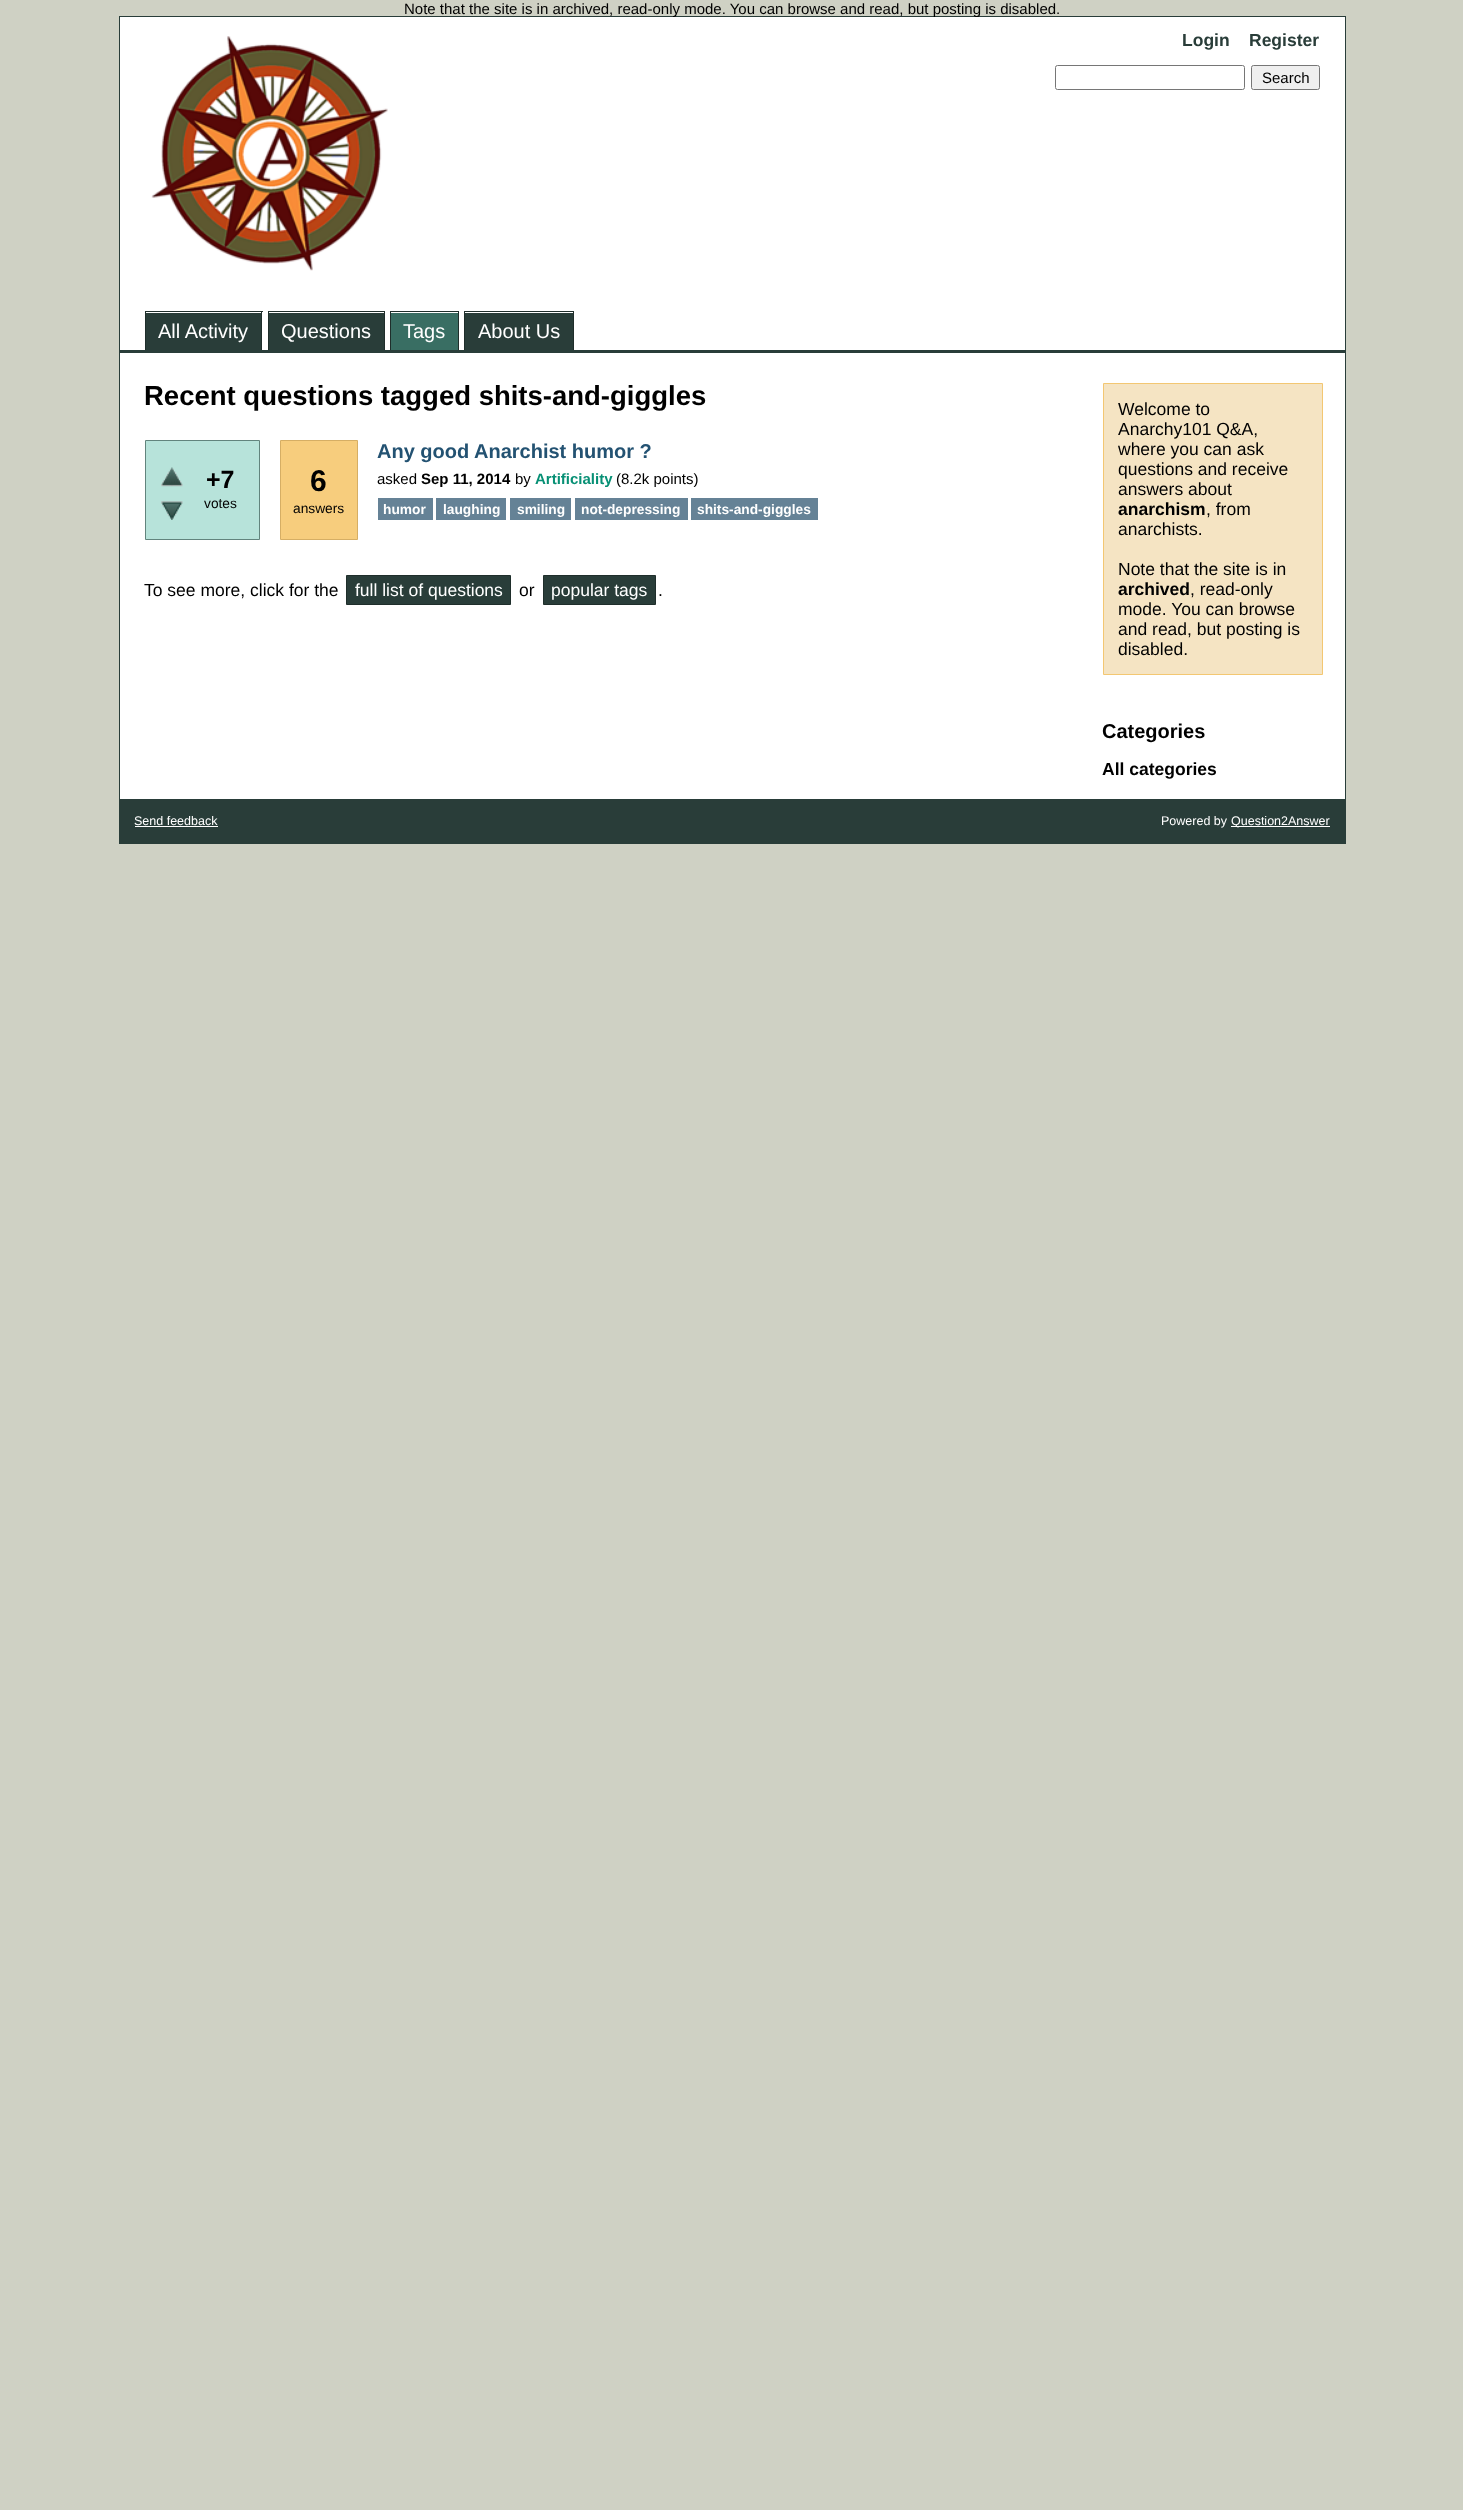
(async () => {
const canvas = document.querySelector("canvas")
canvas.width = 1463
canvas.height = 2510
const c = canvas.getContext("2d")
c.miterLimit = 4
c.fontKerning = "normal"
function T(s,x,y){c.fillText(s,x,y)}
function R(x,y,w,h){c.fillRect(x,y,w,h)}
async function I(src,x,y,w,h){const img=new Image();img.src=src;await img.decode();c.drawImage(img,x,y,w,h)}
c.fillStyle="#cfd1c4"
R(0,0,1463,2510)
c.fillStyle="#fff"
R(120,17,1225,782)
c.strokeStyle="#293d39"
c.strokeRect(119.5,16.5,1226,827)
c.font="15px Liberation Sans"
c.fillStyle="#000"
T("Note that the site is in archived, read-only mode. You can browse and read, but posting is disabled.",404,14)
c.fillStyle="#293d39"
R(120,350,1225,3)
await I("1.png",151,36,237,235)
c.font="bold 17.5px Liberation Sans"
T("Login",1182,46)
T("Register",1249,46)
c.beginPath()
c.roundRect(1055.5,65.5,189,24,2)
c.strokeStyle="#767676"
c.stroke()
c.fillStyle="#efefef"
c.beginPath()
c.roundRect(1251.5,65.5,68,24,2)
c.fill()
c.stroke()
c.font="15px Liberation Sans"
c.fillStyle="#000"
T("Search",1262,83)
c.fillStyle="#1f2e2b"
R(145,311,118,1)
R(261,311,1,39)
R(145,311,1,39)
c.fillStyle="#293d39"
R(146,313,115,37)
c.font="20px Liberation Sans"
c.fillStyle="#fff"
T("All Activity",158,338)
c.fillStyle="#1f2e2b"
R(268,311,117,1)
R(384,311,1,39)
R(268,311,1,39)
c.fillStyle="#293d39"
R(269,313,115,37)
c.fillStyle="#fff"
T("Questions",281,338)
c.fillStyle="#1f2e2b"
R(390,311,69,1)
R(458,311,1,39)
R(390,311,1,39)
c.fillStyle="#396e63"
R(391,313,67,37)
c.fillStyle="#fff"
T("Tags",403,338)
c.fillStyle="#1f2e2b"
R(464,311,110,1)
R(573,311,1,39)
R(464,311,1,39)
c.fillStyle="#293d39"
R(465,313,108,37)
c.fillStyle="#fff"
T("About Us",478,338)
c.font="bold 27.5px Liberation Sans"
c.fillStyle="#000"
T("Recent questions tagged shits-and-giggles",144,405)
c.fillStyle="#b7e3da"
c.beginPath()
c.rect(145.5,440.5,114,99)
c.fill()
c.strokeStyle="#62847d"
c.stroke()
await I("2.png",161,467,22,20)
await I("3.png",161,501,22,19)
c.font="bold 25px Liberation Sans"
c.fillStyle="#000"
T("+7",206,488)
c.font="13.75px Liberation Sans"
T("votes",204,508)
c.fillStyle="#f7cd7d"
c.beginPath()
c.rect(280.5,440.5,77,99)
c.fill()
c.strokeStyle="#d6ae64"
c.stroke()
c.font="bold 30px Liberation Sans"
c.fillStyle="#000"
T("6",310,491)
c.font="13.75px Liberation Sans"
T("answers",293,513)
c.font="bold 20px Liberation Sans"
c.fillStyle="#235272"
T("Any good Anarchist humor ?",377,458)
c.font="15px Liberation Sans"
c.fillStyle="#000"
T("asked",377,484)
c.font="bold 15px Liberation Sans"
T("Sep 11, 2014",421,484)
c.font="15px Liberation Sans"
T("by",515,484)
c.font="bold 15px Liberation Sans"
c.fillStyle="#079075"
T("Artificiality",535,484)
c.font="15px Liberation Sans"
c.fillStyle="#000"
T("(8.2k points)",616,484)
c.fillStyle="#658296"
R(378,498,55,22)
c.font="bold 13.75px Liberation Sans"
c.fillStyle="#fff"
T("humor",383,514)
c.fillStyle="#658296"
R(436,498,70,22)
c.fillStyle="#fff"
T("laughing",443,514)
c.fillStyle="#658296"
R(510,498,61,22)
c.fillStyle="#fff"
T("smiling",517,514)
c.fillStyle="#658296"
R(575,498,113,22)
c.fillStyle="#fff"
T("not-depressing",581,514)
c.fillStyle="#658296"
R(691,498,127,22)
c.fillStyle="#fff"
T("shits-and-giggles",697,514)
c.font="17.5px Liberation Sans"
c.fillStyle="#000"
T("To see more, click for the",144,596)
c.fillStyle="#293d39"
c.beginPath()
c.rect(346.5,575.5,164,29)
c.fill()
c.strokeStyle="#1f2e2b"
c.stroke()
c.fillStyle="#fff"
T("full list of questions",355,596)
c.fillStyle="#000"
T("or",519,596)
c.fillStyle="#293d39"
c.beginPath()
c.rect(543.5,575.5,112,29)
c.fill()
c.stroke()
c.fillStyle="#fff"
T("popular tags",551,596)
c.fillStyle="#000"
T(".",658,596)
c.fillStyle="#f5e4c3"
c.beginPath()
c.rect(1103.5,383.5,219,291)
c.fill()
c.strokeStyle="#f3c772"
c.stroke()
c.fillStyle="#000"
T("Welcome to",1118,415)
T("Anarchy101 Q&A,",1118,435)
T("where you can ask",1118,455)
T("questions and receive",1118,475)
T("answers about",1118,495)
c.font="bold 17.5px Liberation Sans"
T("anarchism",1118,515)
c.font="17.5px Liberation Sans"
T(", from",1206,515)
T("anarchists.",1118,535)
T("Note that the site is in",1118,575)
c.font="bold 17.5px Liberation Sans"
T("archived",1118,595)
c.font="17.5px Liberation Sans"
T(", read-only",1190,595)
T("mode. You can browse",1118,615)
T("and read, but posting is",1118,635)
T("disabled.",1118,655)
c.font="bold 20px Liberation Sans"
T("Categories",1102,738)
c.font="bold 17.5px Liberation Sans"
T("All categories",1102,775)
c.fillStyle="#293d39"
R(120,799,1225,44)
c.font="12.5px Liberation Sans"
c.fillStyle="#fff"
T("Send feedback",134,825)
R(135,826,83,1)
T("Powered by",1161,825)
R(1231,826,99,1)
T("Question2Answer",1231,825)
})()
